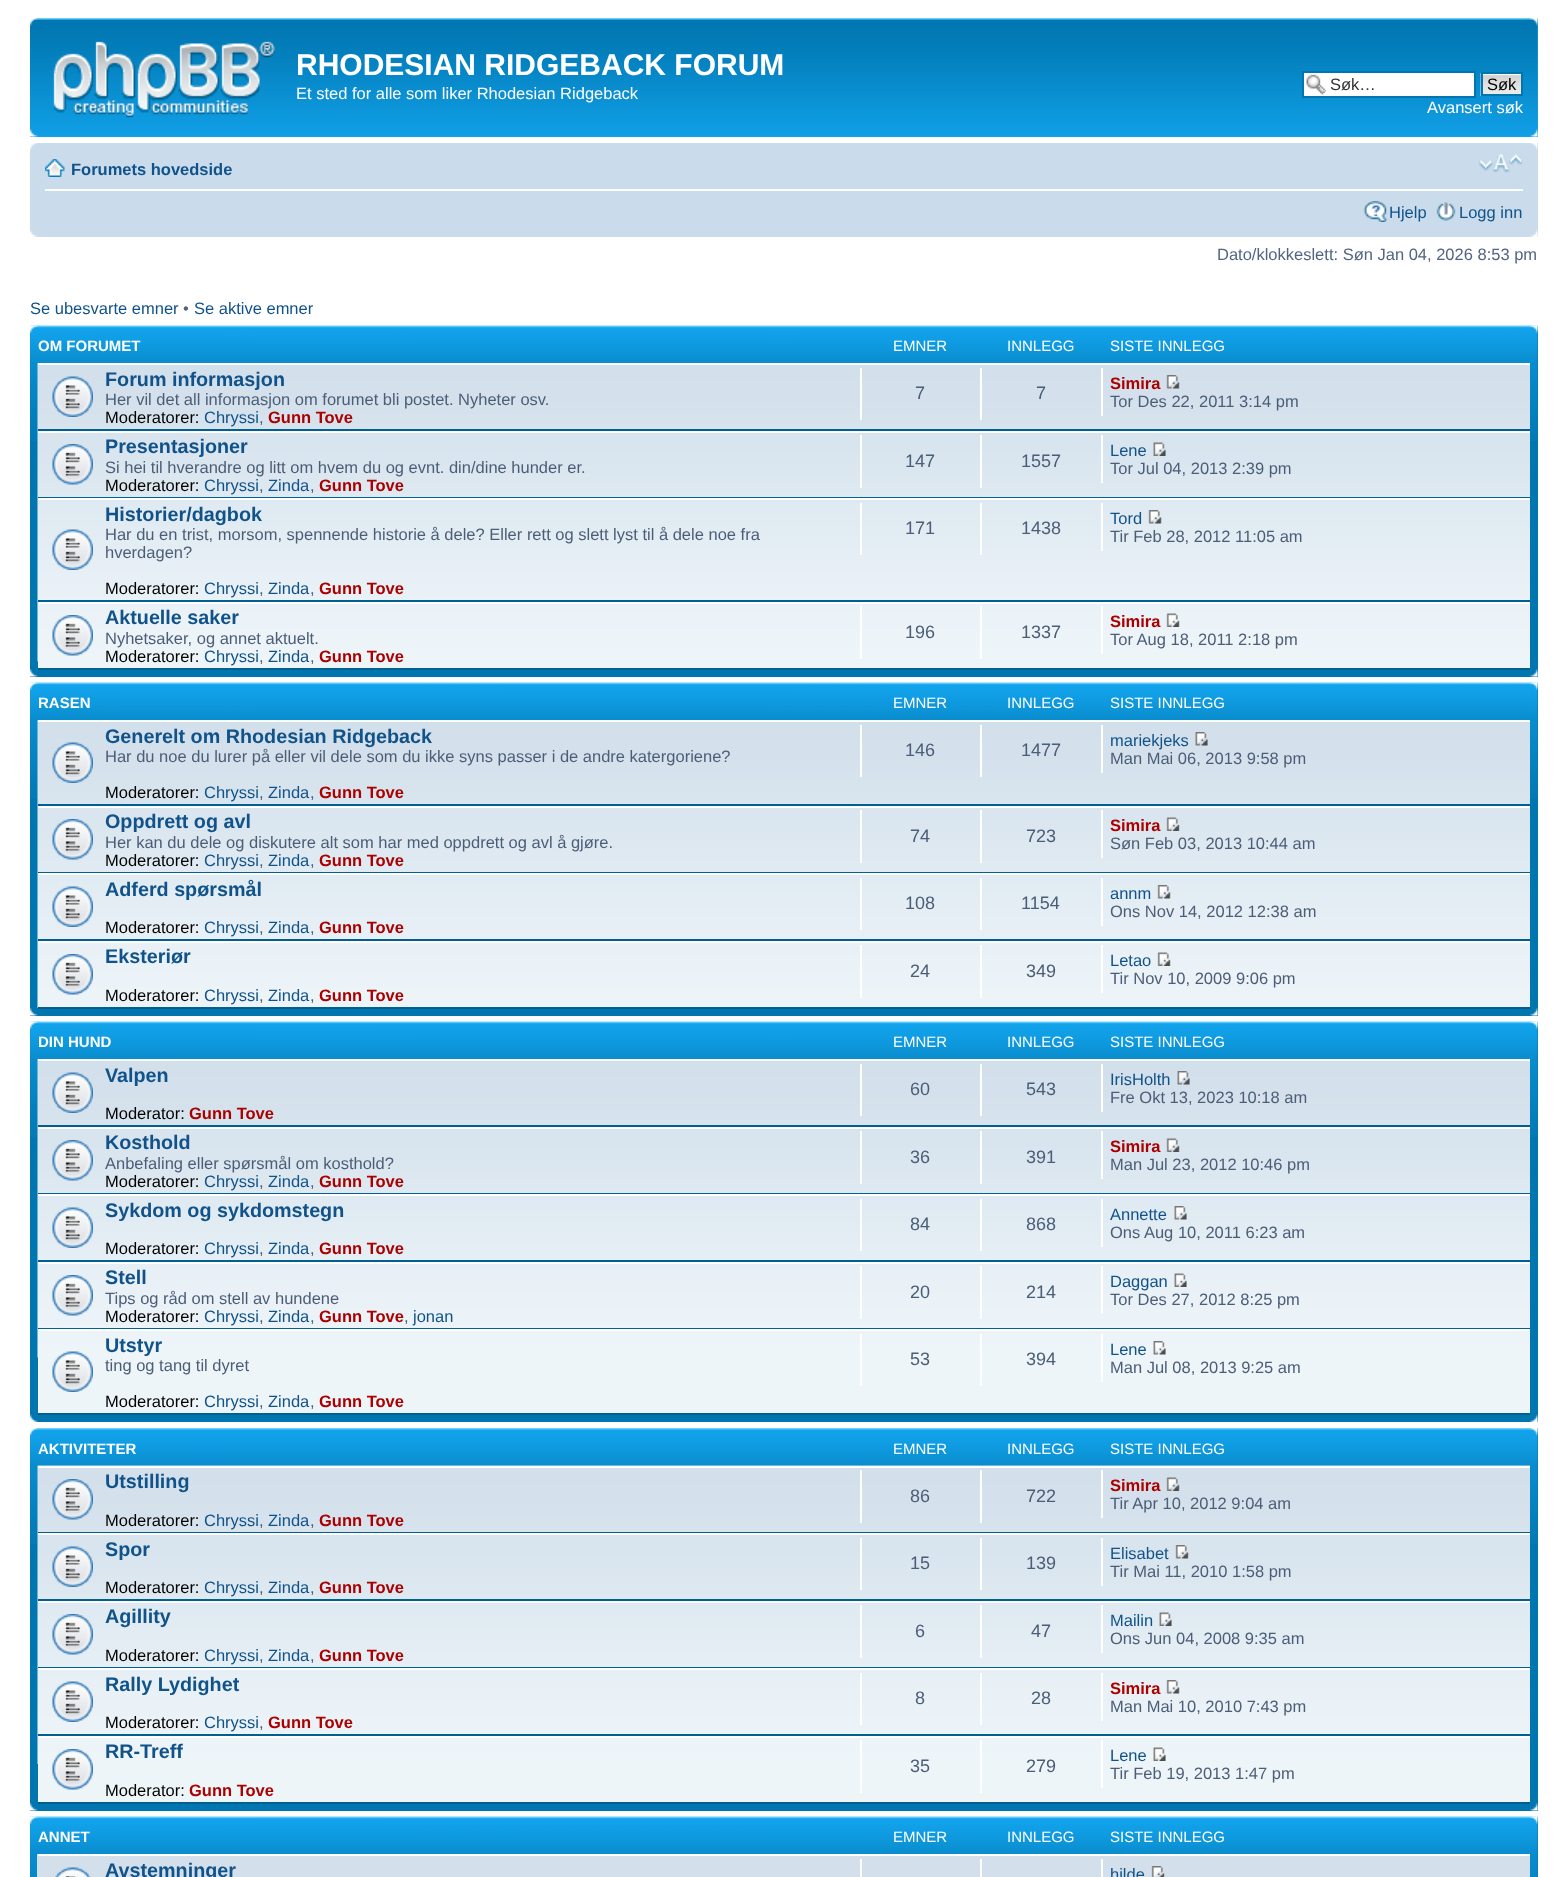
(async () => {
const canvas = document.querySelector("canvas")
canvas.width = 1567
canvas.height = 1877
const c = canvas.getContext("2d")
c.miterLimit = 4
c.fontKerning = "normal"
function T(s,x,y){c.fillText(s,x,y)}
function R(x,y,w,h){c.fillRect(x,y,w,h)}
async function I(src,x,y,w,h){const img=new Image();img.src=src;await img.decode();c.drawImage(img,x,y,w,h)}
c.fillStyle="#fff"
R(0,0,1567,1877)
c.fillStyle="#12a3eb"
R(30,18,1508,119)
await I("1.png",30,18,1508,118)
await I("2.png",30,18,8,8)
await I("3.png",1529,18,9,8)
await I("4.png",53,41,222,77)
c.font="bold 30px Liberation Sans"
c.fillStyle="#fff"
T("RHODESIAN RIDGEBACK FORUM",296,75)
c.font="16.5px Liberation Sans"
T("Et sted for alle som liker Rhodesian Ridgeback",296,99)
R(1304,73,170,23)
await I("5.png",1306,74,21,21)
c.strokeStyle="#0075b0"
c.lineWidth=2
c.strokeRect(1303,72,172,25)
c.fillStyle="#333"
T("Søk…",1330,90)
await I("6.png",1480,73,41,23)
c.strokeRect(1482,73,40,22)
c.fillStyle="#000"
T("Søk",1487,90)
c.fillStyle="#fff"
T("Avansert søk",1427,113)
await I("7.png",30,129,8,8)
await I("8.png",1529,129,9,8)
c.fillStyle="#cadceb"
R(30,143,1508,94)
await I("9.png",30,143,8,7)
await I("10.png",1530,143,8,7)
c.fillStyle="#fff"
R(45,189,1478,2)
await I("11.png",45,159,20,18)
c.font="bold 16.5px Liberation Sans"
c.fillStyle="#105289"
T("Forumets hovedside",71,175)
await I("12.png",1479,154,44,19)
await I("13.png",1363,201,25,21)
c.font="16.5px Liberation Sans"
T("Hjelp",1389,218)
await I("14.png",1436,202,20,19)
T("Logg inn",1459,218)
await I("15.png",30,229,8,8)
await I("16.png",1530,229,8,8)
c.fillStyle="#536482"
T("Dato/klokkeslett: Søn Jan 04, 2026 8:53 pm",1217,260)
c.fillStyle="#105289"
T("Se ubesvarte emner",30,314)
c.fillStyle="#536482"
T("•",183,314)
c.fillStyle="#105289"
T("Se aktive emner",194,314)
c.fillStyle="#0076b1"
R(30,326,1508,351)
await I("17.png",30,325,1508,116)
await I("18.png",30,325,8,8)
await I("19.png",1529,325,9,8)
c.font="bold 15px Liberation Sans"
c.fillStyle="#fff"
T("OM FORUMET",38,351)
c.font="15px Liberation Sans"
T("EMNER",893,351)
T("INNLEGG",1007,351)
T("SISTE INNLEGG",1110,351)
c.fillStyle="#eef5f9"
R(38,661,1492,7)
await I("20.png",37,363,1493,299)
c.fillStyle="#fff"
R(38,363,1492,2)
c.fillStyle="#00608f"
R(38,429,1492,2)
await I("21.png",52,376,41,41)
c.font="bold 19.75px Liberation Sans"
c.fillStyle="#105289"
T("Forum informasjon",105,386)
c.font="16.5px Liberation Sans"
c.fillStyle="#4c5d77"
T("Her vil det all informasjon om forumet bli postet. Nyheter osv.",105,405)
c.fillStyle="#000"
T("Moderatorer:",105,423)
c.fillStyle="#105289"
T("Chryssi",204,423)
c.fillStyle="#4c5d77"
T(",",259,423)
c.font="bold 16.5px Liberation Sans"
c.fillStyle="#a00"
T("Gunn Tove",268,423)
c.fillStyle="#fff"
R(860,368,2,52)
c.font="18px Liberation Sans"
c.fillStyle="#4c5d77"
T("7",915,399)
c.fillStyle="#fff"
R(980,368,2,52)
c.fillStyle="#4c5d77"
T("7",1036,399)
c.fillStyle="#fff"
R(1101,368,2,48)
c.font="bold 16.5px Liberation Sans"
c.fillStyle="#a00"
T("Simira",1110,389)
await I("22.png",1166,375,14,14)
c.font="16.5px Liberation Sans"
c.fillStyle="#4c5d77"
T("Tor Des 22, 2011 3:14 pm",1110,407)
c.fillStyle="#fff"
R(38,431,1492,2)
c.fillStyle="#00608f"
R(38,497,1492,1)
await I("23.png",52,444,41,41)
c.font="bold 19.75px Liberation Sans"
c.fillStyle="#105289"
T("Presentasjoner",105,453)
c.font="16.5px Liberation Sans"
c.fillStyle="#4c5d77"
T("Si hei til hverandre og litt om hvem du og evnt. din/dine hunder er.",105,473)
c.fillStyle="#000"
T("Moderatorer:",105,491)
c.fillStyle="#105289"
T("Chryssi",204,491)
c.fillStyle="#4c5d77"
T(",",259,491)
c.fillStyle="#105289"
T("Zinda",268,491)
c.fillStyle="#4c5d77"
T(",",310,491)
c.font="bold 16.5px Liberation Sans"
c.fillStyle="#a00"
T("Gunn Tove",319,491)
c.fillStyle="#fff"
R(860,435,2,53)
c.font="18px Liberation Sans"
c.fillStyle="#4c5d77"
T("147",905,467)
c.fillStyle="#fff"
R(980,435,2,53)
c.fillStyle="#4c5d77"
T("1557",1021,467)
c.fillStyle="#fff"
R(1101,435,2,48)
c.font="16.5px Liberation Sans"
c.fillStyle="#105289"
T("Lene",1110,456)
await I("24.png",1153,442,13,14)
c.fillStyle="#4c5d77"
T("Tor Jul 04, 2013 2:39 pm",1110,474)
c.fillStyle="#fff"
R(38,498,1492,2)
c.fillStyle="#00608f"
R(38,600,1492,2)
await I("25.png",52,529,41,41)
c.font="bold 19.75px Liberation Sans"
c.fillStyle="#105289"
T("Historier/dagbok",105,521)
c.font="16.5px Liberation Sans"
c.fillStyle="#4c5d77"
T("Har du en trist, morsom, spennende historie å dele? Eller rett og slett lyst til å dele noe fra",105,540)
T("hverdagen?",105,558)
c.fillStyle="#000"
T("Moderatorer:",105,594)
c.fillStyle="#105289"
T("Chryssi",204,594)
c.fillStyle="#4c5d77"
T(",",259,594)
c.fillStyle="#105289"
T("Zinda",268,594)
c.fillStyle="#4c5d77"
T(",",310,594)
c.font="bold 16.5px Liberation Sans"
c.fillStyle="#a00"
T("Gunn Tove",319,594)
c.fillStyle="#fff"
R(860,503,2,52)
c.font="18px Liberation Sans"
c.fillStyle="#4c5d77"
T("171",905,534)
c.fillStyle="#fff"
R(980,503,2,52)
c.fillStyle="#4c5d77"
T("1438",1021,534)
c.fillStyle="#fff"
R(1101,503,2,48)
c.font="16.5px Liberation Sans"
c.fillStyle="#105289"
T("Tord",1110,524)
await I("26.png",1148,510,14,14)
c.fillStyle="#4c5d77"
T("Tir Feb 28, 2012 11:05 am",1110,542)
c.fillStyle="#fff"
R(38,602,1492,2)
c.fillStyle="#00608f"
R(38,668,1492,2)
await I("27.png",52,615,41,41)
c.font="bold 19.75px Liberation Sans"
c.fillStyle="#105289"
T("Aktuelle saker",105,624)
c.font="16.5px Liberation Sans"
c.fillStyle="#4c5d77"
T("Nyhetsaker, og annet aktuelt.",105,644)
c.fillStyle="#000"
T("Moderatorer:",105,662)
c.fillStyle="#105289"
T("Chryssi",204,662)
c.fillStyle="#4c5d77"
T(",",259,662)
c.fillStyle="#105289"
T("Zinda",268,662)
c.fillStyle="#4c5d77"
T(",",310,662)
c.font="bold 16.5px Liberation Sans"
c.fillStyle="#a00"
T("Gunn Tove",319,662)
c.fillStyle="#fff"
R(860,606,2,53)
c.font="18px Liberation Sans"
c.fillStyle="#4c5d77"
T("196",905,638)
c.fillStyle="#fff"
R(980,606,2,53)
c.fillStyle="#4c5d77"
T("1337",1021,638)
c.fillStyle="#fff"
R(1101,606,2,48)
c.font="bold 16.5px Liberation Sans"
c.fillStyle="#a00"
T("Simira",1110,627)
await I("28.png",1166,613,14,14)
c.font="16.5px Liberation Sans"
c.fillStyle="#4c5d77"
T("Tor Aug 18, 2011 2:18 pm",1110,645)
await I("29.png",30,669,8,8)
await I("30.png",1529,669,9,8)
c.fillStyle="#0076b1"
R(30,683,1508,333)
await I("31.png",30,682,1508,116)
await I("32.png",30,682,8,8)
await I("33.png",1529,682,9,8)
c.font="bold 15px Liberation Sans"
c.fillStyle="#fff"
T("RASEN",38,708)
c.font="15px Liberation Sans"
T("EMNER",893,708)
T("INNLEGG",1007,708)
T("SISTE INNLEGG",1110,708)
await I("34.png",37,720,1493,288)
R(38,720,1492,2)
c.fillStyle="#00608f"
R(38,804,1492,2)
await I("35.png",52,742,41,41)
c.font="bold 19.75px Liberation Sans"
c.fillStyle="#105289"
T("Generelt om Rhodesian Ridgeback",105,743)
c.font="16.5px Liberation Sans"
c.fillStyle="#4c5d77"
T("Har du noe du lurer på eller vil dele som du ikke syns passer i de andre katergoriene?",105,762)
c.fillStyle="#000"
T("Moderatorer:",105,798)
c.fillStyle="#105289"
T("Chryssi",204,798)
c.fillStyle="#4c5d77"
T(",",259,798)
c.fillStyle="#105289"
T("Zinda",268,798)
c.fillStyle="#4c5d77"
T(",",310,798)
c.font="bold 16.5px Liberation Sans"
c.fillStyle="#a00"
T("Gunn Tove",319,798)
c.fillStyle="#fff"
R(860,725,2,52)
c.font="18px Liberation Sans"
c.fillStyle="#4c5d77"
T("146",905,756)
c.fillStyle="#fff"
R(980,725,2,52)
c.fillStyle="#4c5d77"
T("1477",1021,756)
c.fillStyle="#fff"
R(1101,725,2,48)
c.font="16.5px Liberation Sans"
c.fillStyle="#105289"
T("mariekjeks",1110,746)
await I("36.png",1195,732,13,14)
c.fillStyle="#4c5d77"
T("Man Mai 06, 2013 9:58 pm",1110,764)
c.fillStyle="#fff"
R(38,806,1492,2)
c.fillStyle="#00608f"
R(38,872,1492,1)
await I("37.png",52,819,41,41)
c.font="bold 19.75px Liberation Sans"
c.fillStyle="#105289"
T("Oppdrett og avl",105,828)
c.font="16.5px Liberation Sans"
c.fillStyle="#4c5d77"
T("Her kan du dele og diskutere alt som har med oppdrett og avl å gjøre.",105,848)
c.fillStyle="#000"
T("Moderatorer:",105,866)
c.fillStyle="#105289"
T("Chryssi",204,866)
c.fillStyle="#4c5d77"
T(",",259,866)
c.fillStyle="#105289"
T("Zinda",268,866)
c.fillStyle="#4c5d77"
T(",",310,866)
c.font="bold 16.5px Liberation Sans"
c.fillStyle="#a00"
T("Gunn Tove",319,866)
c.fillStyle="#fff"
R(860,810,2,53)
c.font="18px Liberation Sans"
c.fillStyle="#4c5d77"
T("74",910,842)
c.fillStyle="#fff"
R(980,810,2,53)
c.fillStyle="#4c5d77"
T("723",1026,842)
c.fillStyle="#fff"
R(1101,810,2,48)
c.font="bold 16.5px Liberation Sans"
c.fillStyle="#a00"
T("Simira",1110,831)
await I("38.png",1166,817,14,14)
c.font="16.5px Liberation Sans"
c.fillStyle="#4c5d77"
T("Søn Feb 03, 2013 10:44 am",1110,849)
c.fillStyle="#fff"
R(38,873,1492,2)
c.fillStyle="#00608f"
R(38,939,1492,2)
await I("25.png",52,886,41,41)
c.font="bold 19.75px Liberation Sans"
c.fillStyle="#105289"
T("Adferd spørsmål",105,896)
c.font="16.5px Liberation Sans"
c.fillStyle="#000"
T("Moderatorer:",105,933)
c.fillStyle="#105289"
T("Chryssi",204,933)
c.fillStyle="#4c5d77"
T(",",259,933)
c.fillStyle="#105289"
T("Zinda",268,933)
c.fillStyle="#4c5d77"
T(",",310,933)
c.font="bold 16.5px Liberation Sans"
c.fillStyle="#a00"
T("Gunn Tove",319,933)
c.fillStyle="#fff"
R(860,878,2,52)
c.font="18px Liberation Sans"
c.fillStyle="#4c5d77"
T("108",905,909)
c.fillStyle="#fff"
R(980,878,2,52)
c.fillStyle="#4c5d77"
T("1154",1021,909)
c.fillStyle="#fff"
R(1101,878,2,48)
c.font="16.5px Liberation Sans"
c.fillStyle="#105289"
T("annm",1110,899)
await I("39.png",1157,885,14,14)
c.fillStyle="#4c5d77"
T("Ons Nov 14, 2012 12:38 am",1110,917)
c.fillStyle="#fff"
R(38,941,1492,2)
c.fillStyle="#00608f"
R(38,1007,1492,2)
await I("40.png",52,954,41,41)
c.font="bold 19.75px Liberation Sans"
c.fillStyle="#105289"
T("Eksteriør",105,963)
c.font="16.5px Liberation Sans"
c.fillStyle="#000"
T("Moderatorer:",105,1001)
c.fillStyle="#105289"
T("Chryssi",204,1001)
c.fillStyle="#4c5d77"
T(",",259,1001)
c.fillStyle="#105289"
T("Zinda",268,1001)
c.fillStyle="#4c5d77"
T(",",310,1001)
c.font="bold 16.5px Liberation Sans"
c.fillStyle="#a00"
T("Gunn Tove",319,1001)
c.fillStyle="#fff"
R(860,945,2,53)
c.font="18px Liberation Sans"
c.fillStyle="#4c5d77"
T("24",910,977)
c.fillStyle="#fff"
R(980,945,2,53)
c.fillStyle="#4c5d77"
T("349",1026,977)
c.fillStyle="#fff"
R(1101,945,2,48)
c.font="16.5px Liberation Sans"
c.fillStyle="#105289"
T("Letao",1110,966)
await I("41.png",1157,952,14,14)
c.fillStyle="#4c5d77"
T("Tir Nov 10, 2009 9:06 pm",1110,984)
await I("29.png",30,1008,8,8)
await I("30.png",1529,1008,9,8)
c.fillStyle="#0076b1"
R(30,1022,1508,400)
await I("42.png",30,1021,1508,116)
await I("43.png",30,1021,8,8)
await I("44.png",1529,1021,9,8)
c.font="bold 15px Liberation Sans"
c.fillStyle="#fff"
T("DIN HUND",38,1047)
c.font="15px Liberation Sans"
T("EMNER",893,1047)
T("INNLEGG",1007,1047)
T("SISTE INNLEGG",1110,1047)
c.fillStyle="#eef5f9"
R(38,1357,1492,56)
await I("45.png",37,1059,1493,299)
c.fillStyle="#fff"
R(38,1059,1492,2)
c.fillStyle="#00608f"
R(38,1125,1492,2)
await I("21.png",52,1072,41,41)
c.font="bold 19.75px Liberation Sans"
c.fillStyle="#105289"
T("Valpen",105,1082)
c.font="16.5px Liberation Sans"
c.fillStyle="#000"
T("Moderator:",105,1119)
c.font="bold 16.5px Liberation Sans"
c.fillStyle="#a00"
T("Gunn Tove",189,1119)
c.fillStyle="#fff"
R(860,1064,2,52)
c.font="18px Liberation Sans"
c.fillStyle="#4c5d77"
T("60",910,1095)
c.fillStyle="#fff"
R(980,1064,2,52)
c.fillStyle="#4c5d77"
T("543",1026,1095)
c.fillStyle="#fff"
R(1101,1064,2,48)
c.font="16.5px Liberation Sans"
c.fillStyle="#105289"
T("IrisHolth",1110,1085)
await I("46.png",1177,1071,13,14)
c.fillStyle="#4c5d77"
T("Fre Okt 13, 2023 10:18 am",1110,1103)
c.fillStyle="#fff"
R(38,1127,1492,2)
c.fillStyle="#00608f"
R(38,1193,1492,1)
await I("23.png",52,1140,41,41)
c.font="bold 19.75px Liberation Sans"
c.fillStyle="#105289"
T("Kosthold",105,1149)
c.font="16.5px Liberation Sans"
c.fillStyle="#4c5d77"
T("Anbefaling eller spørsmål om kosthold?",105,1169)
c.fillStyle="#000"
T("Moderatorer:",105,1187)
c.fillStyle="#105289"
T("Chryssi",204,1187)
c.fillStyle="#4c5d77"
T(",",259,1187)
c.fillStyle="#105289"
T("Zinda",268,1187)
c.fillStyle="#4c5d77"
T(",",310,1187)
c.font="bold 16.5px Liberation Sans"
c.fillStyle="#a00"
T("Gunn Tove",319,1187)
c.fillStyle="#fff"
R(860,1131,2,53)
c.font="18px Liberation Sans"
c.fillStyle="#4c5d77"
T("36",910,1163)
c.fillStyle="#fff"
R(980,1131,2,53)
c.fillStyle="#4c5d77"
T("391",1026,1163)
c.fillStyle="#fff"
R(1101,1131,2,48)
c.font="bold 16.5px Liberation Sans"
c.fillStyle="#a00"
T("Simira",1110,1152)
await I("47.png",1166,1138,14,14)
c.font="16.5px Liberation Sans"
c.fillStyle="#4c5d77"
T("Man Jul 23, 2012 10:46 pm",1110,1170)
c.fillStyle="#fff"
R(38,1194,1492,2)
c.fillStyle="#00608f"
R(38,1260,1492,2)
await I("48.png",52,1207,41,41)
c.font="bold 19.75px Liberation Sans"
c.fillStyle="#105289"
T("Sykdom og sykdomstegn",105,1217)
c.font="16.5px Liberation Sans"
c.fillStyle="#000"
T("Moderatorer:",105,1254)
c.fillStyle="#105289"
T("Chryssi",204,1254)
c.fillStyle="#4c5d77"
T(",",259,1254)
c.fillStyle="#105289"
T("Zinda",268,1254)
c.fillStyle="#4c5d77"
T(",",310,1254)
c.font="bold 16.5px Liberation Sans"
c.fillStyle="#a00"
T("Gunn Tove",319,1254)
c.fillStyle="#fff"
R(860,1199,2,52)
c.font="18px Liberation Sans"
c.fillStyle="#4c5d77"
T("84",910,1230)
c.fillStyle="#fff"
R(980,1199,2,52)
c.fillStyle="#4c5d77"
T("868",1026,1230)
c.fillStyle="#fff"
R(1101,1199,2,48)
c.font="16.5px Liberation Sans"
c.fillStyle="#105289"
T("Annette",1110,1220)
await I("49.png",1174,1206,13,14)
c.fillStyle="#4c5d77"
T("Ons Aug 10, 2011 6:23 am",1110,1238)
c.fillStyle="#fff"
R(38,1262,1492,2)
c.fillStyle="#00608f"
R(38,1328,1492,1)
await I("50.png",52,1275,41,41)
c.font="bold 19.75px Liberation Sans"
c.fillStyle="#105289"
T("Stell",105,1284)
c.font="16.5px Liberation Sans"
c.fillStyle="#4c5d77"
T("Tips og råd om stell av hundene",105,1304)
c.fillStyle="#000"
T("Moderatorer:",105,1322)
c.fillStyle="#105289"
T("Chryssi",204,1322)
c.fillStyle="#4c5d77"
T(",",259,1322)
c.fillStyle="#105289"
T("Zinda",268,1322)
c.fillStyle="#4c5d77"
T(",",310,1322)
c.font="bold 16.5px Liberation Sans"
c.fillStyle="#a00"
T("Gunn Tove",319,1322)
c.font="16.5px Liberation Sans"
c.fillStyle="#4c5d77"
T(",",404,1322)
c.fillStyle="#105289"
T("jonan",413,1322)
c.fillStyle="#fff"
R(860,1266,2,53)
c.font="18px Liberation Sans"
c.fillStyle="#4c5d77"
T("20",910,1298)
c.fillStyle="#fff"
R(980,1266,2,53)
c.fillStyle="#4c5d77"
T("214",1026,1298)
c.fillStyle="#fff"
R(1101,1266,2,48)
c.font="16.5px Liberation Sans"
c.fillStyle="#105289"
T("Daggan",1110,1287)
await I("51.png",1174,1273,13,14)
c.fillStyle="#4c5d77"
T("Tor Des 27, 2012 8:25 pm",1110,1305)
c.fillStyle="#fff"
R(38,1329,1492,2)
c.fillStyle="#00608f"
R(38,1413,1492,2)
await I("52.png",52,1351,41,41)
c.font="bold 19.75px Liberation Sans"
c.fillStyle="#105289"
T("Utstyr",105,1352)
c.font="16.5px Liberation Sans"
c.fillStyle="#4c5d77"
T("ting og tang til dyret",105,1371)
c.fillStyle="#000"
T("Moderatorer:",105,1407)
c.fillStyle="#105289"
T("Chryssi",204,1407)
c.fillStyle="#4c5d77"
T(",",259,1407)
c.fillStyle="#105289"
T("Zinda",268,1407)
c.fillStyle="#4c5d77"
T(",",310,1407)
c.font="bold 16.5px Liberation Sans"
c.fillStyle="#a00"
T("Gunn Tove",319,1407)
c.fillStyle="#fff"
R(860,1334,2,52)
c.font="18px Liberation Sans"
c.fillStyle="#4c5d77"
T("53",910,1365)
c.fillStyle="#fff"
R(980,1334,2,52)
c.fillStyle="#4c5d77"
T("394",1026,1365)
c.fillStyle="#fff"
R(1101,1334,2,48)
c.font="16.5px Liberation Sans"
c.fillStyle="#105289"
T("Lene",1110,1355)
await I("53.png",1153,1341,13,14)
c.fillStyle="#4c5d77"
T("Man Jul 08, 2013 9:25 am",1110,1373)
await I("54.png",30,1414,8,8)
await I("55.png",1529,1414,9,8)
c.fillStyle="#0076b1"
R(30,1428,1508,383)
await I("56.png",30,1428,1508,116)
await I("57.png",30,1428,8,8)
await I("58.png",1529,1428,9,8)
c.font="bold 15px Liberation Sans"
c.fillStyle="#fff"
T("AKTIVITETER",38,1454)
c.font="15px Liberation Sans"
T("EMNER",893,1454)
T("INNLEGG",1007,1454)
T("SISTE INNLEGG",1110,1454)
c.fillStyle="#eef5f9"
R(38,1764,1492,38)
await I("59.png",37,1465,1493,299)
c.fillStyle="#fff"
R(38,1466,1492,2)
c.fillStyle="#00608f"
R(38,1532,1492,1)
await I("60.png",52,1479,41,41)
c.font="bold 19.75px Liberation Sans"
c.fillStyle="#105289"
T("Utstilling",105,1488)
c.font="16.5px Liberation Sans"
c.fillStyle="#000"
T("Moderatorer:",105,1526)
c.fillStyle="#105289"
T("Chryssi",204,1526)
c.fillStyle="#4c5d77"
T(",",259,1526)
c.fillStyle="#105289"
T("Zinda",268,1526)
c.fillStyle="#4c5d77"
T(",",310,1526)
c.font="bold 16.5px Liberation Sans"
c.fillStyle="#a00"
T("Gunn Tove",319,1526)
c.fillStyle="#fff"
R(860,1470,2,53)
c.font="18px Liberation Sans"
c.fillStyle="#4c5d77"
T("86",910,1502)
c.fillStyle="#fff"
R(980,1470,2,53)
c.fillStyle="#4c5d77"
T("722",1026,1502)
c.fillStyle="#fff"
R(1101,1470,2,48)
c.font="bold 16.5px Liberation Sans"
c.fillStyle="#a00"
T("Simira",1110,1491)
await I("61.png",1166,1477,14,14)
c.font="16.5px Liberation Sans"
c.fillStyle="#4c5d77"
T("Tir Apr 10, 2012 9:04 am",1110,1509)
c.fillStyle="#fff"
R(38,1533,1492,2)
c.fillStyle="#00608f"
R(38,1599,1492,2)
await I("62.png",52,1546,41,41)
c.font="bold 19.75px Liberation Sans"
c.fillStyle="#105289"
T("Spor",105,1556)
c.font="16.5px Liberation Sans"
c.fillStyle="#000"
T("Moderatorer:",105,1593)
c.fillStyle="#105289"
T("Chryssi",204,1593)
c.fillStyle="#4c5d77"
T(",",259,1593)
c.fillStyle="#105289"
T("Zinda",268,1593)
c.fillStyle="#4c5d77"
T(",",310,1593)
c.font="bold 16.5px Liberation Sans"
c.fillStyle="#a00"
T("Gunn Tove",319,1593)
c.fillStyle="#fff"
R(860,1538,2,52)
c.font="18px Liberation Sans"
c.fillStyle="#4c5d77"
T("15",910,1569)
c.fillStyle="#fff"
R(980,1538,2,52)
c.fillStyle="#4c5d77"
T("139",1026,1569)
c.fillStyle="#fff"
R(1101,1538,2,48)
c.font="16.5px Liberation Sans"
c.fillStyle="#105289"
T("Elisabet",1110,1559)
await I("63.png",1175,1545,14,14)
c.fillStyle="#4c5d77"
T("Tir Mai 11, 2010 1:58 pm",1110,1577)
c.fillStyle="#fff"
R(38,1601,1492,2)
c.fillStyle="#00608f"
R(38,1667,1492,1)
await I("64.png",52,1614,41,41)
c.font="bold 19.75px Liberation Sans"
c.fillStyle="#105289"
T("Agillity",105,1623)
c.font="16.5px Liberation Sans"
c.fillStyle="#000"
T("Moderatorer:",105,1661)
c.fillStyle="#105289"
T("Chryssi",204,1661)
c.fillStyle="#4c5d77"
T(",",259,1661)
c.fillStyle="#105289"
T("Zinda",268,1661)
c.fillStyle="#4c5d77"
T(",",310,1661)
c.font="bold 16.5px Liberation Sans"
c.fillStyle="#a00"
T("Gunn Tove",319,1661)
c.fillStyle="#fff"
R(860,1605,2,53)
c.font="18px Liberation Sans"
c.fillStyle="#4c5d77"
T("6",915,1637)
c.fillStyle="#fff"
R(980,1605,2,53)
c.fillStyle="#4c5d77"
T("47",1031,1637)
c.fillStyle="#fff"
R(1101,1605,2,48)
c.font="16.5px Liberation Sans"
c.fillStyle="#105289"
T("Mailin",1110,1626)
await I("65.png",1159,1612,13,14)
c.fillStyle="#4c5d77"
T("Ons Jun 04, 2008 9:35 am",1110,1644)
c.fillStyle="#fff"
R(38,1668,1492,2)
c.fillStyle="#00608f"
R(38,1734,1492,2)
await I("66.png",52,1681,41,41)
c.font="bold 19.75px Liberation Sans"
c.fillStyle="#105289"
T("Rally Lydighet",105,1691)
c.font="16.5px Liberation Sans"
c.fillStyle="#000"
T("Moderatorer:",105,1728)
c.fillStyle="#105289"
T("Chryssi",204,1728)
c.fillStyle="#4c5d77"
T(",",259,1728)
c.font="bold 16.5px Liberation Sans"
c.fillStyle="#a00"
T("Gunn Tove",268,1728)
c.fillStyle="#fff"
R(860,1673,2,52)
c.font="18px Liberation Sans"
c.fillStyle="#4c5d77"
T("8",915,1704)
c.fillStyle="#fff"
R(980,1673,2,52)
c.fillStyle="#4c5d77"
T("28",1031,1704)
c.fillStyle="#fff"
R(1101,1673,2,48)
c.font="bold 16.5px Liberation Sans"
c.fillStyle="#a00"
T("Simira",1110,1694)
await I("67.png",1166,1680,14,14)
c.font="16.5px Liberation Sans"
c.fillStyle="#4c5d77"
T("Man Mai 10, 2010 7:43 pm",1110,1712)
c.fillStyle="#fff"
R(38,1736,1492,2)
c.fillStyle="#00608f"
R(38,1802,1492,2)
await I("68.png",52,1749,41,41)
c.font="bold 19.75px Liberation Sans"
c.fillStyle="#105289"
T("RR-Treff",105,1758)
c.font="16.5px Liberation Sans"
c.fillStyle="#000"
T("Moderator:",105,1796)
c.font="bold 16.5px Liberation Sans"
c.fillStyle="#a00"
T("Gunn Tove",189,1796)
c.fillStyle="#fff"
R(860,1740,2,53)
c.font="18px Liberation Sans"
c.fillStyle="#4c5d77"
T("35",910,1772)
c.fillStyle="#fff"
R(980,1740,2,53)
c.fillStyle="#4c5d77"
T("279",1026,1772)
c.fillStyle="#fff"
R(1101,1740,2,48)
c.font="16.5px Liberation Sans"
c.fillStyle="#105289"
T("Lene",1110,1761)
await I("69.png",1153,1747,13,14)
c.fillStyle="#4c5d77"
T("Tir Feb 19, 2013 1:47 pm",1110,1779)
await I("29.png",30,1803,8,8)
await I("30.png",1529,1803,9,8)
c.fillStyle="#0076b1"
R(1537,1817,1,60)
await I("70.png",30,1816,1508,61)
await I("71.png",30,1816,8,8)
await I("72.png",1529,1816,9,8)
c.font="bold 15px Liberation Sans"
c.fillStyle="#fff"
T("ANNET",38,1842)
c.font="15px Liberation Sans"
T("EMNER",893,1842)
T("INNLEGG",1007,1842)
T("SISTE INNLEGG",1110,1842)
c.fillStyle="#d3e0eb"
R(37,1854,1493,23)
c.fillStyle="#fff"
R(38,1854,1492,2)
await I("73.png",55,1867,36,10)
c.font="bold 19.75px Liberation Sans"
c.fillStyle="#105289"
T("Avstemninger",105,1877)
c.fillStyle="#fff"
R(860,1859,2,18)
R(980,1859,2,18)
R(1101,1859,2,18)
c.font="16.5px Liberation Sans"
c.fillStyle="#105289"
T("hilde",1110,1880)
await I("74.png",1151,1866,14,11)
})()
